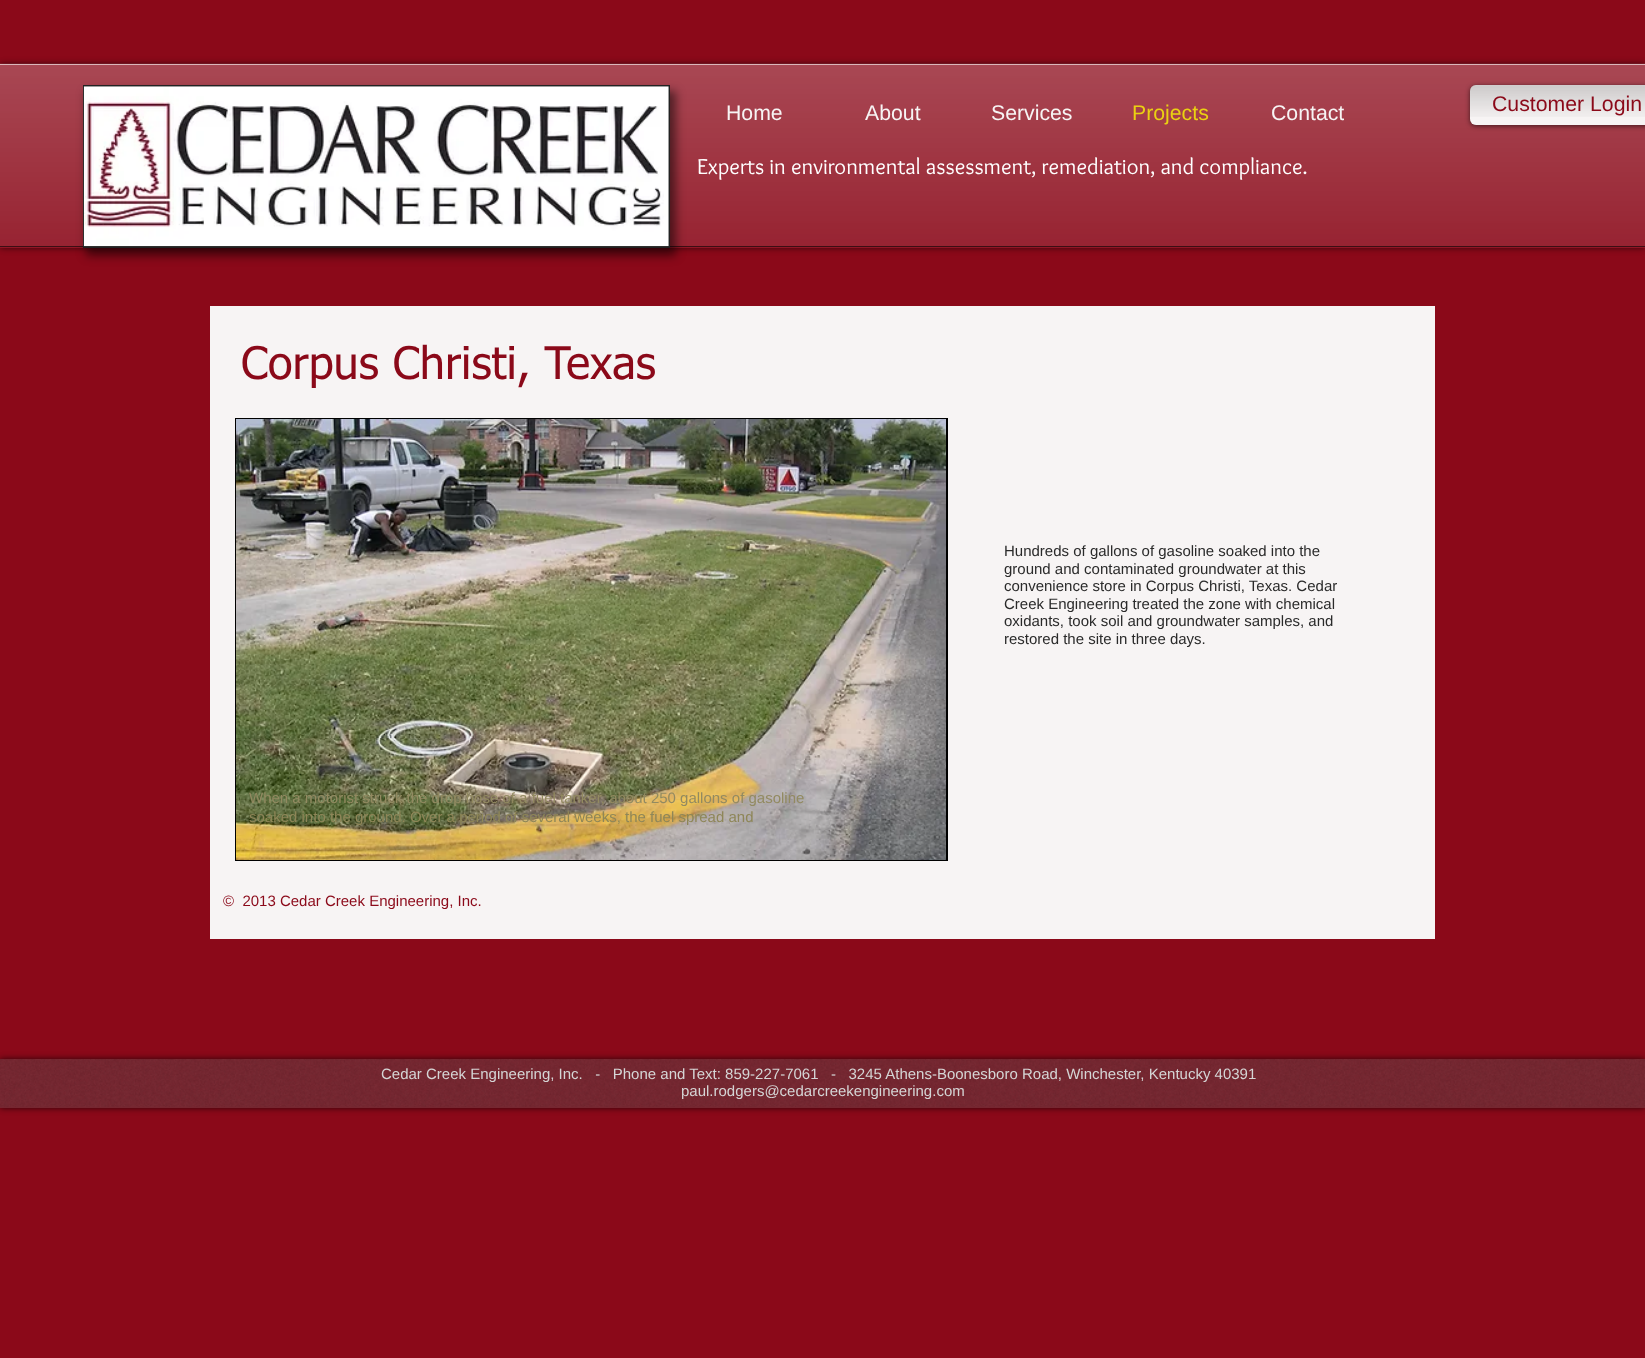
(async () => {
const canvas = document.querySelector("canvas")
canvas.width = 1645
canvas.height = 1358
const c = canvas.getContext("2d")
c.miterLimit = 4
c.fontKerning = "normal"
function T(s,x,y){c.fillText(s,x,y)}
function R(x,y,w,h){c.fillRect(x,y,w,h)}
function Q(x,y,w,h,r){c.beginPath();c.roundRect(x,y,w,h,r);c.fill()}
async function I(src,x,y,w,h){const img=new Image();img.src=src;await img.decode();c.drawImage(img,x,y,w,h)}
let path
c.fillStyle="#8b0919"
R(0,0,1645,1358)
c.fillStyle="#00000099"
c.filter="blur(3px)"
c.beginPath()
c.rect(0,64,1645,184)
c.fill()
c.filter="none"
c.fillStyle="#8b0919"
R(0,65,1645,183)
await I("1.png",0,63,1645,185)
c.fillStyle="#3d0e14"
R(0,246,1645,1)
c.fillStyle="#dcb6ba"
R(0,64,1645,1)
c.fillStyle="#00000080"
c.filter="blur(5px)"
c.beginPath()
c.rect(86,91,590,165)
c.fill()
c.filter="none"
c.fillStyle="#222"
R(83,85,587,163)
await I("2.png",83,86,586,161)
c.font="21.25px Liberation Sans"
c.fillStyle="#f7f4f4"
T("Home",726,120)
T("About",865,120)
T("Services",991,120)
c.fillStyle="#ead112"
T("Projects",1132,120)
c.fillStyle="#f7f4f4"
T("Contact",1271,120)
c.fillStyle="#00000099"
c.filter="blur(2.5px)"
c.beginPath()
c.roundRect(1470,86,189,40,6)
c.fill()
c.filter="none"
c.fillStyle="#f7f4f4"
Q(1470,85,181,40,6)
await I("3.png",1470,85,175,32)
await I("4.png",1470,120,5,5)
c.fillStyle="#8b0919"
T("Customer Login",1492,111)
c.font="22.5px Overlock"
c.fillStyle="#fff"
T("Experts in environmental assessment, remediation, and compliance.",697,174)
c.fillStyle="#f7f4f4"
R(210,306,1225,633)
c.font="45px tahoma"
c.fillStyle="#8b0919"
T("Corpus Christi, Texas",241,379)
c.font="15px Liberation Sans"
c.fillStyle="#2a2a2a"
T("Hundreds of gallons of gasoline soaked into the",1004,556)
T("ground and contaminated groundwater at this",1004,574)
T("convenience store in Corpus Christi, Texas. Cedar",1004,591)
T("Creek Engineering treated the zone with chemical",1004,609)
T("oxidants, took soil and groundwater samples, and",1004,626)
T("restored the site in three days.",1004,644)
c.fillStyle="#000"
R(235,418,713,443)
await I("5.png",236,419,710,441)
c.fillStyle="#928a61"
T("When a motorist struck the drop hose of a fuel tanker, about 250 gallons of gasoline",249,803)
c.fillStyle="#8e8658"
T("soaked into the ground. Over a period of several weeks, the fuel spread and",249,822)
c.fillStyle="#8b0919"
T("©  2013 Cedar Creek Engineering, Inc.",223,906)
c.save()
path = new Path2D("M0 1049h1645v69h-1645zm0 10h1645v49h-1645z")
c.clip(path,"evenodd")
c.fillStyle="#000000b3"
c.filter="blur(3px)"
c.beginPath()
c.rect(0,1059,1645,49)
c.fill()
c.filter="none"
c.restore()
c.fillStyle="#55555563"
R(0,1059,1645,49)
await I("6.png",0,1059,1645,48)
c.fillStyle="#d5d5d5"
T("Cedar Creek Engineering, Inc.   -   Phone and Text: 859-227-7061   -   3245 Athens-Boonesboro Road, Winchester, Kentucky 40391",381,1079)
T("paul.rodgers@cedarcreekengineering.com",681,1096)
})()
